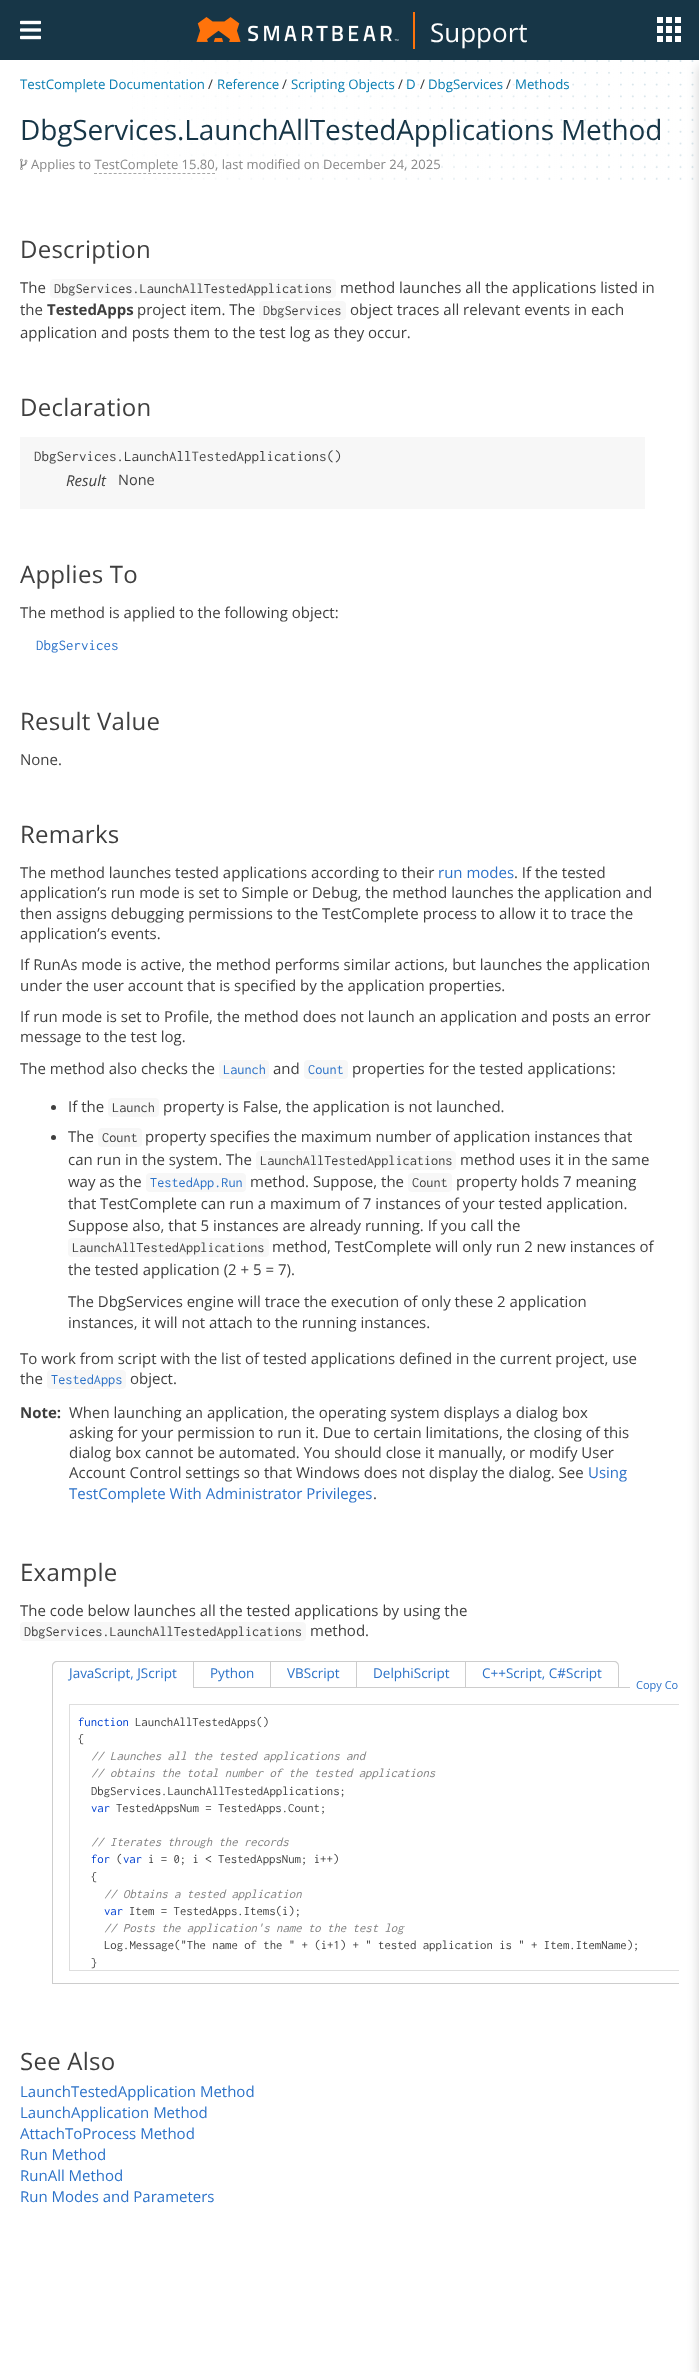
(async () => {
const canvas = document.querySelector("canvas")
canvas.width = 699
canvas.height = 2372
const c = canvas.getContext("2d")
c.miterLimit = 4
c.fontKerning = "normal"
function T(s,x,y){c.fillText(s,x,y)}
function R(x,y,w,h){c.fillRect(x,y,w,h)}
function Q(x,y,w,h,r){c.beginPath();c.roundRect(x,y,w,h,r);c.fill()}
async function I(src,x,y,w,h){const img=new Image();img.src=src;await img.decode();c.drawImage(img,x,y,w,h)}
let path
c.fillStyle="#fff"
R(0,0,699,2372)
c.fillStyle="#173647"
R(0,0,699,60)
await I("1.png",20,20,21,20)
await I("2.png",196,17,203,25)
c.fillStyle="#ff730b"
R(413,12,2,37)
c.font="26px Open Sans"
c.fillStyle="#fff"
T("Support",430,42)
await I("3.png",657,17,24,25)
await I("4.png",132,60,562,120)
c.save()
c.beginPath()
c.rect(0,184,679,2055)
c.clip()
c.strokeStyle="#cdcdcd"
c.strokeRect(52.5,1687.5,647,296)
c.strokeStyle="#dedede"
c.strokeRect(69.5,1704.5,619,266)
c.restore()
c.fillStyle="#0000002e"
c.filter="blur(6px)"
c.beginPath()
c.rect(699,66,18,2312)
c.fill()
c.filter="none"
c.font="13.25px Open Sans"
c.fillStyle="#097eb2"
T("TestComplete Documentation",20,89)
c.fillStyle="#333"
T("/",208,89)
c.fillStyle="#097eb2"
T("Reference",217,89)
c.fillStyle="#333"
T("/",282,89)
c.fillStyle="#097eb2"
T("Scripting Objects",291,89)
c.fillStyle="#333"
T("/",398,89)
c.fillStyle="#097eb2"
T("D",406,89)
c.fillStyle="#333"
T("/",420,89)
c.fillStyle="#097eb2"
T("DbgServices",428,89)
c.fillStyle="#333"
T("/",506,89)
c.fillStyle="#097eb2"
T("Methods",515,89)
c.letterSpacing="-0.15px"
c.font="28px Open Sans"
c.fillStyle="#173647"
T("DbgServices.LaunchAllTestedApplications Method",20,140)
await I("5.png",20,158,8,12)
c.letterSpacing="0px"
c.font="13px Open Sans"
c.fillStyle="#888"
T("Applies to TestComplete 15.80",31,169)
T(", last modified on December 24, 2025",215,169)
path = new Path2D("M94 173.5h121")
c.strokeStyle="#a7a7a7"
c.setLineDash([3,1.92])
c.stroke(path)
c.letterSpacing="0.25px"
c.font="24px Open Sans"
c.fillStyle="#3f3f3f"
T("Description",20,258)
c.letterSpacing="0px"
c.font="15px Open Sans"
T("The",20,293)
c.fillStyle="#f7f7f7"
Q(50,279,286,19,4)
c.font="14.25px Inconsolata"
c.fillStyle="#3f3f3f"
T("DbgServices.LaunchAllTestedApplications",54,293)
c.font="15px Open Sans"
T("method launches all the applications listed in",340,293)
T("the",20,315)
c.font="bold 15px Open Sans"
T("TestedApps",47,315)
c.font="15px Open Sans"
T("project item. The",137,315)
c.fillStyle="#f7f7f7"
Q(259,301,87,19,4)
c.font="14.25px Inconsolata"
c.fillStyle="#3f3f3f"
T("DbgServices",263,315)
c.font="15px Open Sans"
T("object traces all relevant events in each",350,315)
T("application and posts them to the test log as they occur.",20,338)
c.letterSpacing="0.25px"
c.font="24px Open Sans"
T("Declaration",20,416)
c.fillStyle="#f7f7f7"
R(20,437,625,72)
c.letterSpacing="0px"
c.font="15px Inconsolata"
c.fillStyle="#3f3f3f"
T("DbgServices.LaunchAllTestedApplications()",34,461)
c.font="italic 15px Open Sans"
T("Result",66,486)
c.font="14.5px Open Sans"
T("None",118,485)
c.letterSpacing="0.25px"
c.font="24px Open Sans"
T("Applies To",20,583)
c.letterSpacing="0px"
c.font="15px Open Sans"
T("The method is applied to the following object:",20,618)
c.font="15px Inconsolata"
c.fillStyle="#2c72c8"
T("DbgServices",36,650)
c.letterSpacing="0.25px"
c.font="24px Open Sans"
c.fillStyle="#3f3f3f"
T("Result Value",20,730)
c.letterSpacing="0px"
c.font="15px Open Sans"
T("None.",20,765)
c.letterSpacing="0.25px"
c.font="24px Open Sans"
T("Remarks",20,843)
c.letterSpacing="0px"
c.font="15px Open Sans"
T("The method launches tested applications according to their",20,878)
c.fillStyle="#2c72c8"
T("run modes",438,878)
c.fillStyle="#3f3f3f"
T(". If the tested",514,878)
T("application’s run mode is set to Simple or Debug, the method launches the application and",20,898)
T("then assigns debugging permissions to the TestComplete process to allow it to trace the",20,919)
T("application’s events.",20,939)
T("If RunAs mode is active, the method performs similar actions, but launches the application",20,970)
T("under the user account that is specified by the application properties.",20,991)
T("If run mode is set to Profile, the method does not launch an application and posts an error",20,1022)
T("message to the test log.",20,1042)
T("The method also checks the",20,1074)
c.fillStyle="#f7f7f7"
Q(219,1060,50,19,4)
c.font="14.25px Inconsolata"
c.fillStyle="#2c72c8"
T("Launch",223,1074)
c.font="15px Open Sans"
c.fillStyle="#3f3f3f"
T("and",273,1074)
c.fillStyle="#f7f7f7"
Q(304,1060,44,19,4)
c.font="14.25px Inconsolata"
c.fillStyle="#2c72c8"
T("Count",308,1074)
c.font="15px Open Sans"
c.fillStyle="#3f3f3f"
T("properties for the tested applications:",352,1074)
c.beginPath()
c.arc(53.5,1107.5,2.5,0,7)
c.fill()
T("If the",68,1112)
c.fillStyle="#f7f7f7"
Q(108,1098,51,19,4)
c.font="14.25px Inconsolata"
c.fillStyle="#3f3f3f"
T("Launch",112,1112)
c.font="15px Open Sans"
T("property is False, the application is not launched.",163,1112)
c.beginPath()
c.arc(53.5,1137.5,2.5,0,7)
c.fill()
T("The",68,1142)
c.fillStyle="#f7f7f7"
Q(98,1128,44,19,4)
c.font="14.25px Inconsolata"
c.fillStyle="#3f3f3f"
T("Count",102,1142)
c.font="15px Open Sans"
T("property specifies the maximum number of application instances that",145,1142)
T("can run in the system. The",68,1165)
c.fillStyle="#f7f7f7"
Q(256,1151,200,19,4)
c.font="14.25px Inconsolata"
c.fillStyle="#3f3f3f"
T("LaunchAllTestedApplications",260,1165)
c.font="15px Open Sans"
T("method uses it in the same",460,1165)
T("way as the",68,1187)
c.fillStyle="#f7f7f7"
Q(146,1173,100,19,4)
c.font="14.25px Inconsolata"
c.fillStyle="#2c72c8"
T("TestedApp.Run",150,1187)
c.font="15px Open Sans"
c.fillStyle="#3f3f3f"
T("method. Suppose, the",250,1187)
c.fillStyle="#f7f7f7"
Q(408,1173,44,19,4)
c.font="14.25px Inconsolata"
c.fillStyle="#3f3f3f"
T("Count",412,1187)
c.font="15px Open Sans"
T("property holds 7 meaning",456,1187)
T("that TestComplete can run a maximum of 7 instances of your tested application.",68,1209)
T("Suppose also, that 5 instances are already running. If you call the",68,1231)
c.fillStyle="#f7f7f7"
Q(68,1238,201,19,4)
c.font="14.25px Inconsolata"
c.fillStyle="#3f3f3f"
T("LaunchAllTestedApplications",72,1252)
c.font="15px Open Sans"
T("method, TestComplete will only run 2 new instances of",272,1252)
T("the tested application (2 + 5 = 7).",68,1275)
T("The DbgServices engine will trace the execution of only these 2 application",68,1307)
T("instances, it will not attach to the running instances.",68,1328)
T("To work from script with the list of tested applications defined in the current project, use",20,1364)
T("the",20,1384)
c.fillStyle="#f7f7f7"
Q(47,1370,79,19,4)
c.font="14.25px Inconsolata"
c.fillStyle="#2c72c8"
T("TestedApps",51,1384)
c.font="15px Open Sans"
c.fillStyle="#3f3f3f"
T("object.",130,1384)
c.font="bold 15px Open Sans"
T("Note:",20,1418)
c.font="15px Open Sans"
T("When launching an application, the operating system displays a dialog box",69,1418)
T("asking for your permission to run it. Due to certain limitations, the closing of this",69,1438)
T("dialog box cannot be automated. You should close it manually, or modify User",69,1458)
T("Account Control settings so that Windows does not display the dialog. See",69,1478)
c.fillStyle="#2c72c8"
T("Using",588,1478)
T("TestComplete With Administrator Privileges",69,1499)
c.fillStyle="#3f3f3f"
T(".",373,1499)
c.letterSpacing="0.25px"
c.font="24px Open Sans"
T("Example",20,1581)
c.letterSpacing="0px"
c.font="15px Open Sans"
T("The code below launches all the tested applications by using the",20,1616)
c.fillStyle="#f7f7f7"
Q(20,1622,286,19,4)
c.font="14.25px Inconsolata"
c.fillStyle="#3f3f3f"
T("DbgServices.LaunchAllTestedApplications",24,1636)
c.font="15px Open Sans"
T("method.",310,1636)
c.fillStyle="#fff"
c.beginPath()
c.roundRect(52,1661,142,27,[5,0,0,0])
c.fill()
c.fillStyle="#cdcdcd"
path = new Path2D("M57 1661h137v27h-142v-22c0-3 2-5 5-5zm0 1h136v26h-140v-22c0-2 2-4 4-4z")
c.fill(path,"evenodd")
c.font="13.5px Open Sans"
c.fillStyle="#2c72c8"
T("JavaScript, JScript",69,1678)
c.fillStyle="#cdcdcd"
R(194,1661,272,1)
R(270,1661,1,27)
c.fillStyle="#2c72c8"
T("Python",210,1678)
c.fillStyle="#cdcdcd"
R(356,1661,1,27)
c.fillStyle="#2c72c8"
T("VBScript",287,1678)
c.fillStyle="#cdcdcd"
R(465,1661,1,27)
c.fillStyle="#2c72c8"
T("DelphiScript",373,1678)
c.fillStyle="#cdcdcd"
path = new Path2D("M466 1661h148c3 0 5 2 5 5v22h-153zm0 1h148c2 0 4 2 4 4v22h-152z")
c.fill(path,"evenodd")
c.fillStyle="#2c72c8"
T("C++Script, C#Script",482,1678)
c.fillStyle="#fff"
R(630,1687,49,1)
c.font="11px Open Sans"
c.fillStyle="#2c72c8"
T("Copy Co",636,1689)
c.font="12.75px Inconsolata"
c.fillStyle="#0040d0"
T("function",78,1726)
c.fillStyle="#3f3f3f"
T("LaunchAllTestedApps()",135,1726)
T("{",78,1743)
c.font="italic 12.75px Inconsolata"
c.fillStyle="#808080"
T("// Launches all the tested applications and",91,1760)
T("// obtains the total number of the tested applications",91,1777)
c.font="12.75px Inconsolata"
c.fillStyle="#3f3f3f"
T("DbgServices.LaunchAllTestedApplications;",91,1795)
c.fillStyle="#0040d0"
T("var",91,1812)
c.fillStyle="#3f3f3f"
T("TestedAppsNum = TestedApps.Count;",116,1812)
c.font="italic 12.75px Inconsolata"
c.fillStyle="#808080"
T("// Iterates through the records",91,1846)
c.font="12.75px Inconsolata"
c.fillStyle="#0040d0"
T("for",91,1863)
c.fillStyle="#3f3f3f"
T("(",116,1863)
c.fillStyle="#0040d0"
T("var",123,1863)
c.fillStyle="#3f3f3f"
T("i = 0; i < TestedAppsNum; i++)",148,1863)
T("{",91,1881)
c.font="italic 12.75px Inconsolata"
c.fillStyle="#808080"
T("// Obtains a tested application",104,1898)
c.font="12.75px Inconsolata"
c.fillStyle="#0040d0"
T("var",104,1915)
c.fillStyle="#3f3f3f"
T("Item = TestedApps.Items(i);",129,1915)
c.font="italic 12.75px Inconsolata"
c.fillStyle="#808080"
T("// Posts the application's name to the test log",104,1932)
c.font="12.75px Inconsolata"
c.fillStyle="#3f3f3f"
T("Log.Message(\"The name of the \" + (i+1) + \" tested application is \" + Item.ItemName);",104,1949)
T("}",91,1967)
c.letterSpacing="0.25px"
c.font="24px Open Sans"
T("See Also",20,2070)
c.letterSpacing="0px"
c.font="15px Open Sans"
c.fillStyle="#2c72c8"
T("LaunchTestedApplication Method",20,2097)
T("LaunchApplication Method",20,2118)
T("AttachToProcess Method",20,2139)
T("Run Method",20,2160)
T("RunAll Method",20,2181)
T("Run Modes and Parameters",20,2202)
})()
